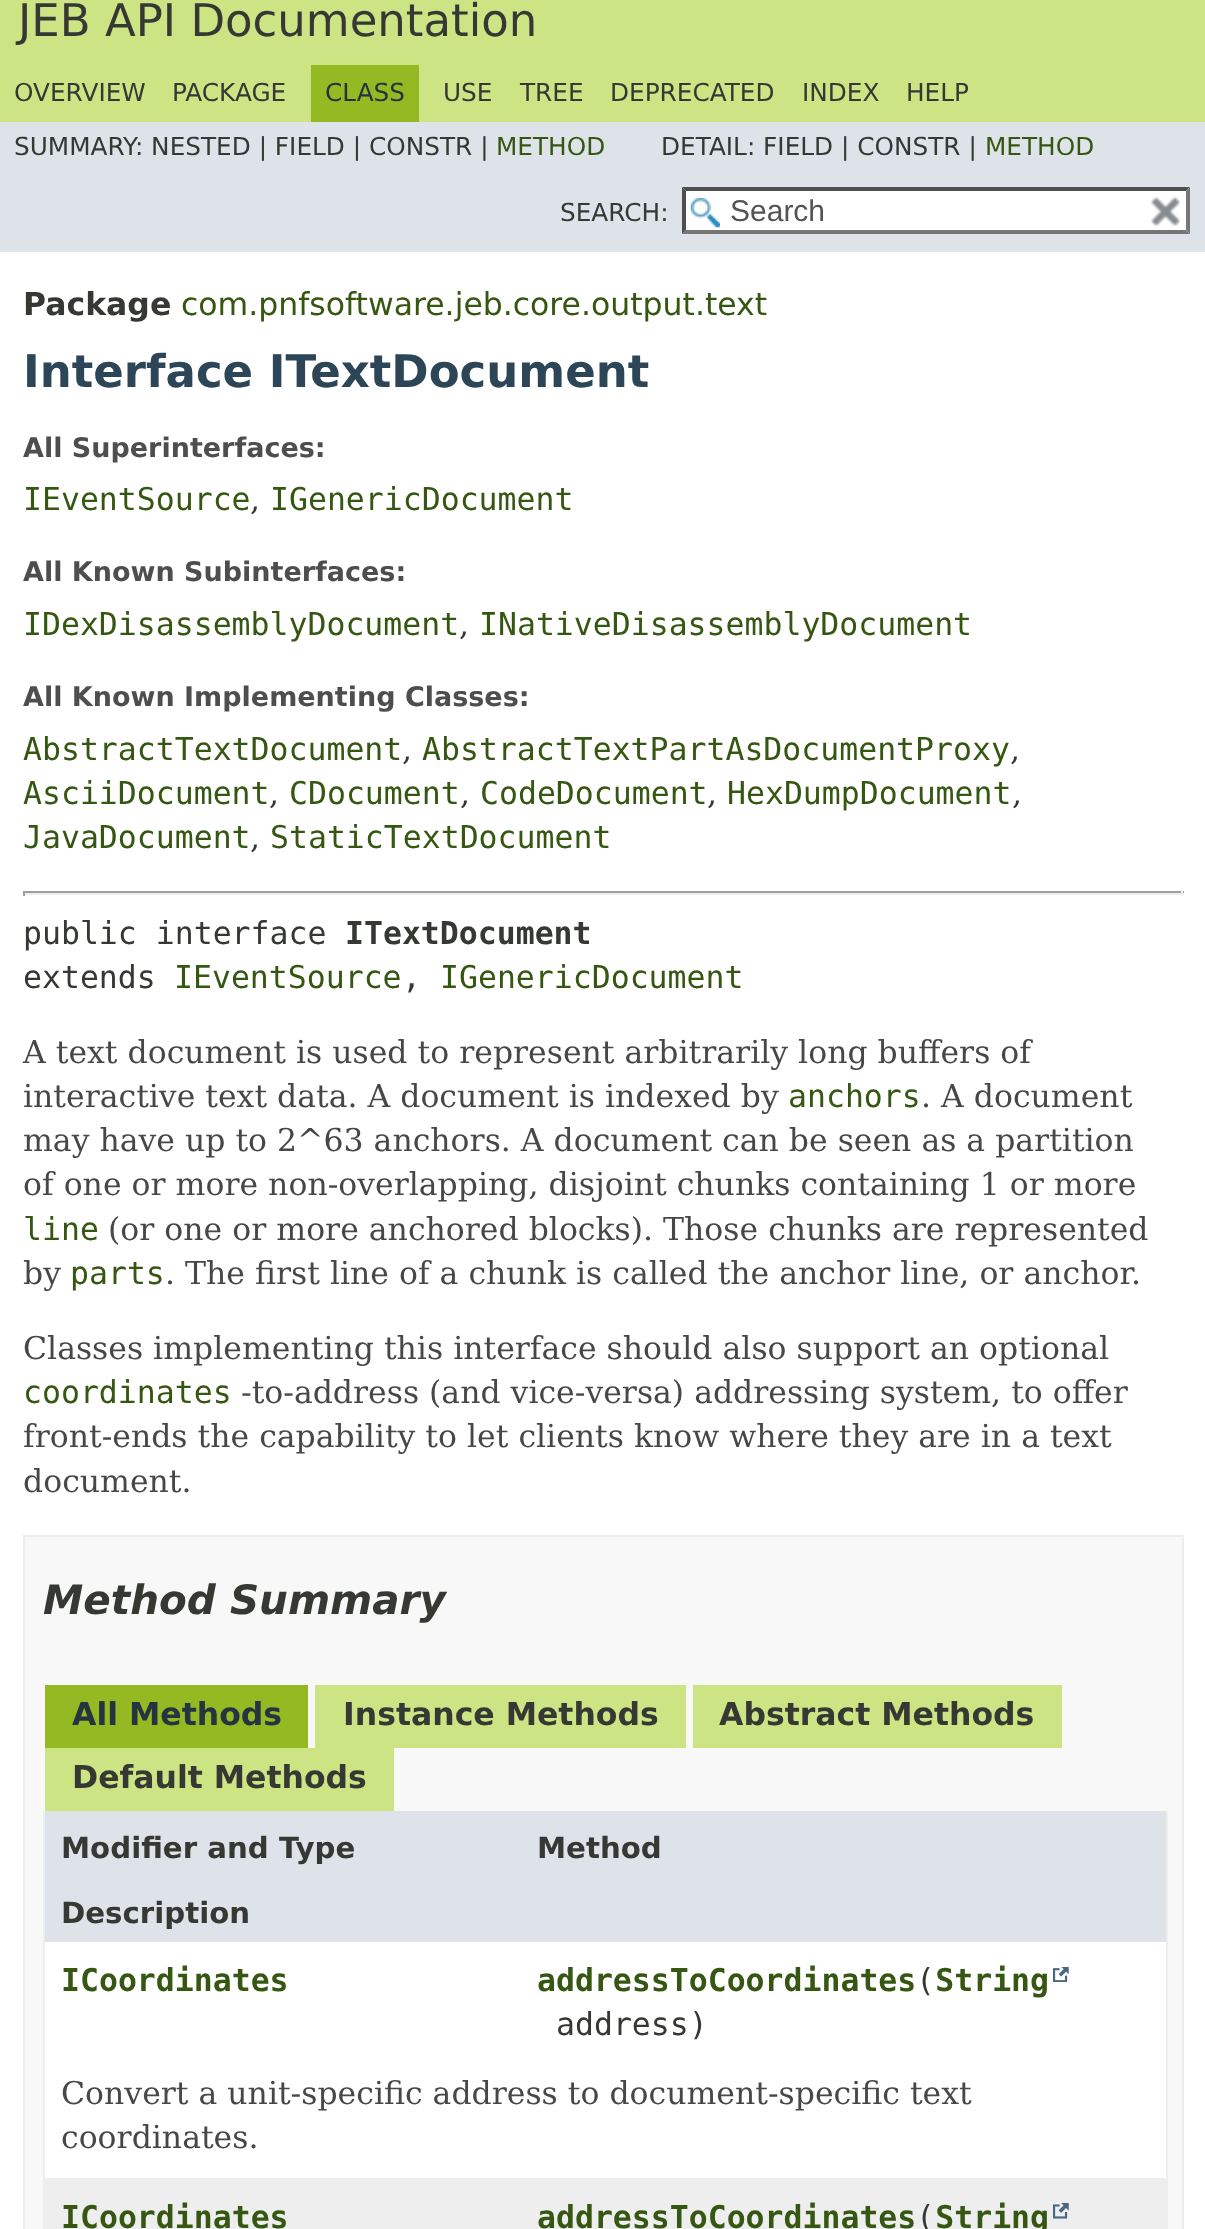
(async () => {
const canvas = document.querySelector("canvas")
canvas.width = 1205
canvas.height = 2229
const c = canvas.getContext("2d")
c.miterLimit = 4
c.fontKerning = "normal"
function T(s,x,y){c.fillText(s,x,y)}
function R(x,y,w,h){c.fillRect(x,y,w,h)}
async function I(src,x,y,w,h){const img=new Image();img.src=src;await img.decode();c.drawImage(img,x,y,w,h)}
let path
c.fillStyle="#fff"
R(0,0,1205,2229)
c.fillStyle="#cde485"
R(0,0,1205,122)
c.font="45px DejaVu Sans"
c.fillStyle="#353833"
T("JEB API Documentation",18,36)
c.font="24.75px DejaVu Sans"
T("OVERVIEW",14,101)
T("PACKAGE",172,101)
c.fillStyle="#94b922"
R(311,65,108,57)
c.fillStyle="#253441"
T("CLASS",325,101)
c.fillStyle="#353833"
T("USE",443,101)
T("TREE",520,101)
T("DEPRECATED",610,101)
T("INDEX",802,101)
T("HELP",906,101)
c.fillStyle="#dee3e9"
R(0,122,1205,130)
c.fillStyle="#353833"
T("SUMMARY: NESTED | FIELD | CONSTR |",14,155)
c.fillStyle="#365712"
T("METHOD",496,155)
c.fillStyle="#353833"
T("DETAIL: FIELD | CONSTR |",661,155)
c.fillStyle="#365712"
T("METHOD",985,155)
c.fillStyle="#353833"
T("SEARCH:",560,221)
c.fillStyle="#fff"
R(682,187,508,47)
await I("1.png",690,198,30,30)
c.fillStyle="#4f4f4f"
path = new Path2D("M682 187h508l-4 4h-500z")
c.fill(path)
c.fillStyle="#767676"
path = new Path2D("M1190 187v47l-4-4v-39z")
c.fill(path)
path = new Path2D("M1190 234h-508l4-4h500z")
c.fill(path)
c.fillStyle="#4f4f4f"
path = new Path2D("M682 234v-47l4 4v39z")
c.fill(path)
c.font="30px Liberation Sans"
c.fillStyle="#545454"
T("Search",730,221)
await I("2.png",1150,196,30,30)
c.font="bold 31.5px DejaVu Sans"
c.fillStyle="#353833"
T("Package",23,315)
c.font="31.5px DejaVu Sans"
c.fillStyle="#365712"
T("com.pnfsoftware.jeb.core.output.text",181,315)
c.font="bold 45px DejaVu Sans"
c.fillStyle="#2c4557"
T("Interface ITextDocument",23,387)
c.font="bold 27px DejaVu Sans"
c.fillStyle="#4e4e4e"
T("All Superinterfaces:",23,457)
c.font="31.5px DejaVu Sans Mono"
c.fillStyle="#365712"
T("IEventSource",23,510)
c.font="31.5px DejaVu Serif"
c.fillStyle="#353833"
T(",",250,510)
c.font="31.5px DejaVu Sans Mono"
c.fillStyle="#365712"
T("IGenericDocument",270,510)
c.font="bold 27px DejaVu Sans"
c.fillStyle="#4e4e4e"
T("All Known Subinterfaces:",23,581)
c.font="31.5px DejaVu Sans Mono"
c.fillStyle="#365712"
T("IDexDisassemblyDocument",23,635)
c.font="31.5px DejaVu Serif"
c.fillStyle="#353833"
T(",",459,635)
c.font="31.5px DejaVu Sans Mono"
c.fillStyle="#365712"
T("INativeDisassemblyDocument",479,635)
c.font="bold 27px DejaVu Sans"
c.fillStyle="#4e4e4e"
T("All Known Implementing Classes:",23,706)
c.font="31.5px DejaVu Sans Mono"
c.fillStyle="#365712"
T("AbstractTextDocument",23,760)
c.font="31.5px DejaVu Serif"
c.fillStyle="#353833"
T(",",402,760)
c.font="31.5px DejaVu Sans Mono"
c.fillStyle="#365712"
T("AbstractTextPartAsDocumentProxy",422,760)
c.font="31.5px DejaVu Serif"
c.fillStyle="#353833"
T(",",1010,760)
c.font="31.5px DejaVu Sans Mono"
c.fillStyle="#365712"
T("AsciiDocument",23,804)
c.font="31.5px DejaVu Serif"
c.fillStyle="#353833"
T(",",269,804)
c.font="31.5px DejaVu Sans Mono"
c.fillStyle="#365712"
T("CDocument",289,804)
c.font="31.5px DejaVu Serif"
c.fillStyle="#353833"
T(",",460,804)
c.font="31.5px DejaVu Sans Mono"
c.fillStyle="#365712"
T("CodeDocument",480,804)
c.font="31.5px DejaVu Serif"
c.fillStyle="#353833"
T(",",707,804)
c.font="31.5px DejaVu Sans Mono"
c.fillStyle="#365712"
T("HexDumpDocument",727,804)
c.font="31.5px DejaVu Serif"
c.fillStyle="#353833"
T(",",1012,804)
c.font="31.5px DejaVu Sans Mono"
c.fillStyle="#365712"
T("JavaDocument",23,848)
c.font="31.5px DejaVu Serif"
c.fillStyle="#353833"
T(",",250,848)
c.font="31.5px DejaVu Sans Mono"
c.fillStyle="#365712"
T("StaticTextDocument",270,848)
c.fillStyle="#9f9f9f"
R(23,891,1161,2)
c.fillStyle="#eee"
R(1181,891,2,5)
R(23,893,1161,2)
c.fillStyle="#9f9f9f"
R(23,891,2,5)
c.fillStyle="#353833"
T("public interface",23,944)
c.font="bold 31.5px DejaVu Sans Mono"
T("ITextDocument",345,944)
c.font="31.5px DejaVu Sans Mono"
T("extends",23,988)
c.fillStyle="#365712"
T("IEventSource",174,988)
c.fillStyle="#353833"
T(",",402,988)
c.fillStyle="#365712"
T("IGenericDocument",440,988)
c.font="31.5px DejaVu Serif"
c.fillStyle="#474747"
T("A text document is used to represent arbitrarily long buffers of",23,1063)
T("interactive text data. A document is indexed by",23,1107)
c.font="31.5px DejaVu Sans Mono"
c.fillStyle="#365712"
T("anchors",788,1107)
c.font="31.5px DejaVu Serif"
c.fillStyle="#474747"
T(". A document",921,1107)
T("may have up to 2^63 anchors. A document can be seen as a partition",23,1151)
T("of one or more non-overlapping, disjoint chunks containing 1 or more",23,1195)
c.font="31.5px DejaVu Sans Mono"
c.fillStyle="#365712"
T("line",23,1240)
c.font="31.5px DejaVu Serif"
c.fillStyle="#474747"
T("(or one or more anchored blocks). Those chunks are represented",108,1240)
T("by",23,1284)
c.font="31.5px DejaVu Sans Mono"
c.fillStyle="#365712"
T("parts",70,1284)
c.font="31.5px DejaVu Serif"
c.fillStyle="#474747"
T(". The first line of a chunk is called the anchor line, or anchor.",165,1284)
T("Classes implementing this interface should also support an optional",23,1359)
c.font="31.5px DejaVu Sans Mono"
c.fillStyle="#365712"
T("coordinates",23,1403)
c.font="31.5px DejaVu Serif"
c.fillStyle="#474747"
T("-to-address (and vice-versa) addressing system, to offer",241,1403)
T("front-ends the capability to let clients know where they are in a text",23,1447)
T("document.",23,1492)
c.fillStyle="#f8f8f8"
c.beginPath()
c.rect(24,1536,1159,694)
c.fill()
c.strokeStyle="#ededed"
c.lineWidth=2
c.stroke()
c.font="italic bold 40.5px DejaVu Sans"
c.fillStyle="#353833"
T("Method Summary",43,1614)
c.fillStyle="#94b922"
R(45,1685,263,63)
c.font="bold 31.5px DejaVu Sans"
c.fillStyle="#253441"
T("All Methods",72,1725)
c.fillStyle="#cde485"
R(315,1685,371,63)
c.fillStyle="#353833"
T("Instance Methods",343,1725)
c.fillStyle="#cde485"
R(693,1685,369,63)
c.fillStyle="#353833"
T("Abstract Methods",719,1725)
c.fillStyle="#cde485"
R(45,1748,349,63)
c.fillStyle="#353833"
T("Default Methods",72,1788)
c.fillStyle="#eee"
R(1166,1811,2,418)
R(43,1811,2,418)
c.fillStyle="#dee3e9"
R(45,1811,1121,66)
c.font="bold 29.25px DejaVu Sans"
c.fillStyle="#353833"
T("Modifier and Type",61,1858)
T("Method",537,1858)
c.fillStyle="#dee3e9"
R(45,1877,1121,65)
c.fillStyle="#353833"
T("Description",61,1923)
c.fillStyle="#fff"
R(45,1942,1121,112)
c.font="bold 31.5px DejaVu Sans Mono"
c.fillStyle="#365712"
T("ICoordinates",61,1991)
T("addressToCoordinates String",537,1991)
c.font="31.5px DejaVu Sans Mono"
c.fillStyle="#353833"
T("(",916,1991)
await I("3.png",1053,1967,16,15)
T("address)",556,2035)
c.fillStyle="#fff"
R(45,2054,1121,124)
c.font="31.5px DejaVu Serif"
c.fillStyle="#474747"
T("Convert a unit-specific address to document-specific text",61,2104)
T("coordinates.",61,2148)
c.fillStyle="#eeeeef"
R(45,2178,1121,51)
c.font="bold 31.5px DejaVu Sans Mono"
c.fillStyle="#365712"
T("ICoordinates",61,2228)
T("addressToCoordinates String",537,2228)
await I("4.png",1053,2203,16,16)
c.font="31.5px DejaVu Sans Mono"
c.fillStyle="#353833"
T("(",916,2228)
})()
